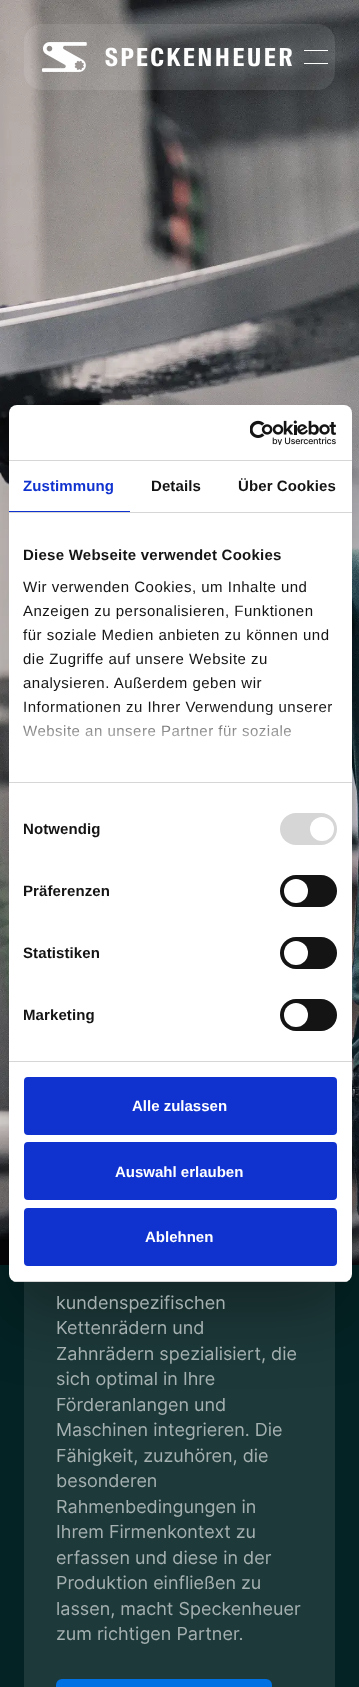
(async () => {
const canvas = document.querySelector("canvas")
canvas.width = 359
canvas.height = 1687
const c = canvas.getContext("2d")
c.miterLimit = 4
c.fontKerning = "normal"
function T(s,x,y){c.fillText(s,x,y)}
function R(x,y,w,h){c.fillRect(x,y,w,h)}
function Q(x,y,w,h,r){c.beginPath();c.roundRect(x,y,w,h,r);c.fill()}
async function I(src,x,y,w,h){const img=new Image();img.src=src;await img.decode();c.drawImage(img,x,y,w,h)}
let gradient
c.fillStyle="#042324"
R(0,0,359,1687)
await I("3.png",0,0,359,1265)
c.fillStyle="#ffffff1a"
R(24,1282,311,405)
c.fillStyle="#0000004d"
c.filter="blur(34px)"
c.beginPath()
c.roundRect(9,437,343,877,8)
c.fill()
c.filter="none"
c.fillStyle="#fff"
Q(9,405,343,877,8)
c.fillStyle="#d6d6d6"
R(9,460,343,1)
await I("1.png",250,420,87,25)
R(9,512,343,1)
c.fillStyle="#1032cf"
R(9,511,121,1)
c.letterSpacing="0.1px"
c.font="bold 15px Liberation Sans"
T("Zustimmung",23,491)
c.fillStyle="#141414"
T("Details",151,491)
T("Über Cookies",238,491)
c.fillStyle="#d6d6d6"
R(9,782,343,1)
c.letterSpacing="0.25px"
c.fillStyle="#141414"
T("Diese Webseite verwendet Cookies",23,560)
c.letterSpacing="0.5px"
c.font="15px Liberation Sans"
T("Wir verwenden Cookies, um Inhalte und",23,592)
T("Anzeigen zu personalisieren, Funktionen",23,616)
T("für soziale Medien anbieten zu können und",23,640)
T("die Zugriffe auf unsere Website zu",23,664)
T("analysieren. Außerdem geben wir",23,688)
T("Informationen zu Ihrer Verwendung unserer",23,712)
T("Website an unsere Partner für soziale",23,736)
gradient = c.createLinearGradient(174,782,174,707)
gradient.addColorStop(0,"#fff")
gradient.addColorStop(.5,"#ffffffcc")
gradient.addColorStop(1,"#ffffff00")
c.fillStyle = gradient
R(23,708,307,29)
c.fillStyle="#d6d6d6"
R(9,1061,343,1)
c.letterSpacing="0.1px"
c.font="bold 15px Liberation Sans"
c.fillStyle="#141414"
T("Notwendig",23,834)
c.fillStyle="#d6d6d6"
Q(280,813,57,32,16)
c.fillStyle="#fff"
c.beginPath()
c.arc(322,829,12,0,7)
c.fill()
c.fillStyle="#141414"
T("Präferenzen",23,896)
Q(280,875,57,32,16)
c.fillStyle="#fff"
c.beginPath()
c.arc(296,891,12,0,7)
c.fill()
c.fillStyle="#141414"
T("Statistiken",23,958)
Q(280,937,57,32,16)
c.fillStyle="#fff"
c.beginPath()
c.arc(296,953,12,0,7)
c.fill()
c.fillStyle="#141414"
T("Marketing",23,1020)
Q(280,999,57,32,16)
c.fillStyle="#fff"
c.beginPath()
c.arc(296,1015,12,0,7)
c.fill()
c.save()
c.beginPath()
c.roundRect(9,405,343,877,8)
c.clip()
c.fillStyle="#d6d6d6"
R(9,1281,343,1)
c.restore()
c.fillStyle="#1032cf"
c.beginPath()
c.roundRect(25,1078,311,56,3)
c.fill()
c.strokeStyle="#1032cf"
c.lineWidth=2
c.stroke()
c.letterSpacing="0px"
c.fillStyle="#fff"
T("Alle zulassen",132,1111)
c.fillStyle="#1032cf"
c.beginPath()
c.roundRect(25,1143,311,56,3)
c.fill()
c.stroke()
c.fillStyle="#fff"
T("Auswahl erlauben",115,1177)
c.fillStyle="#1032cf"
c.beginPath()
c.roundRect(25,1209,311,56,3)
c.fill()
c.stroke()
c.fillStyle="#fff"
T("Ablehnen",145,1242)
c.fillStyle="#ffffff1a"
Q(24,24,311,66,18)
await I("2.png",42,42,250,30)
c.fillStyle="#fdfefe"
R(304,50,24,1)
R(304,63,24,1)
c.font="18px Inter"
c.fillStyle="#a5b0b0"
T("kundenspezifischen",56,1309)
T("Kettenrädern und",56,1334)
T("Zahnrädern spezialisiert, die",56,1360)
T("sich optimal in Ihre",56,1385)
T("Förderanlangen und",56,1411)
T("Maschinen integrieren. Die",56,1436)
T("Fähigkeit, zuzuhören, die",56,1462)
T("besonderen",56,1487)
T("Rahmenbedingungen in",56,1513)
T("Ihrem Firmenkontext zu",56,1538)
T("erfassen und diese in der",56,1564)
T("Produktion einfließen zu",56,1589)
T("lassen, macht Speckenheuer",56,1615)
T("zum richtigen Partner.",56,1640)
c.fillStyle="#0071e3"
Q(56,1679,216,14,6)
})()
